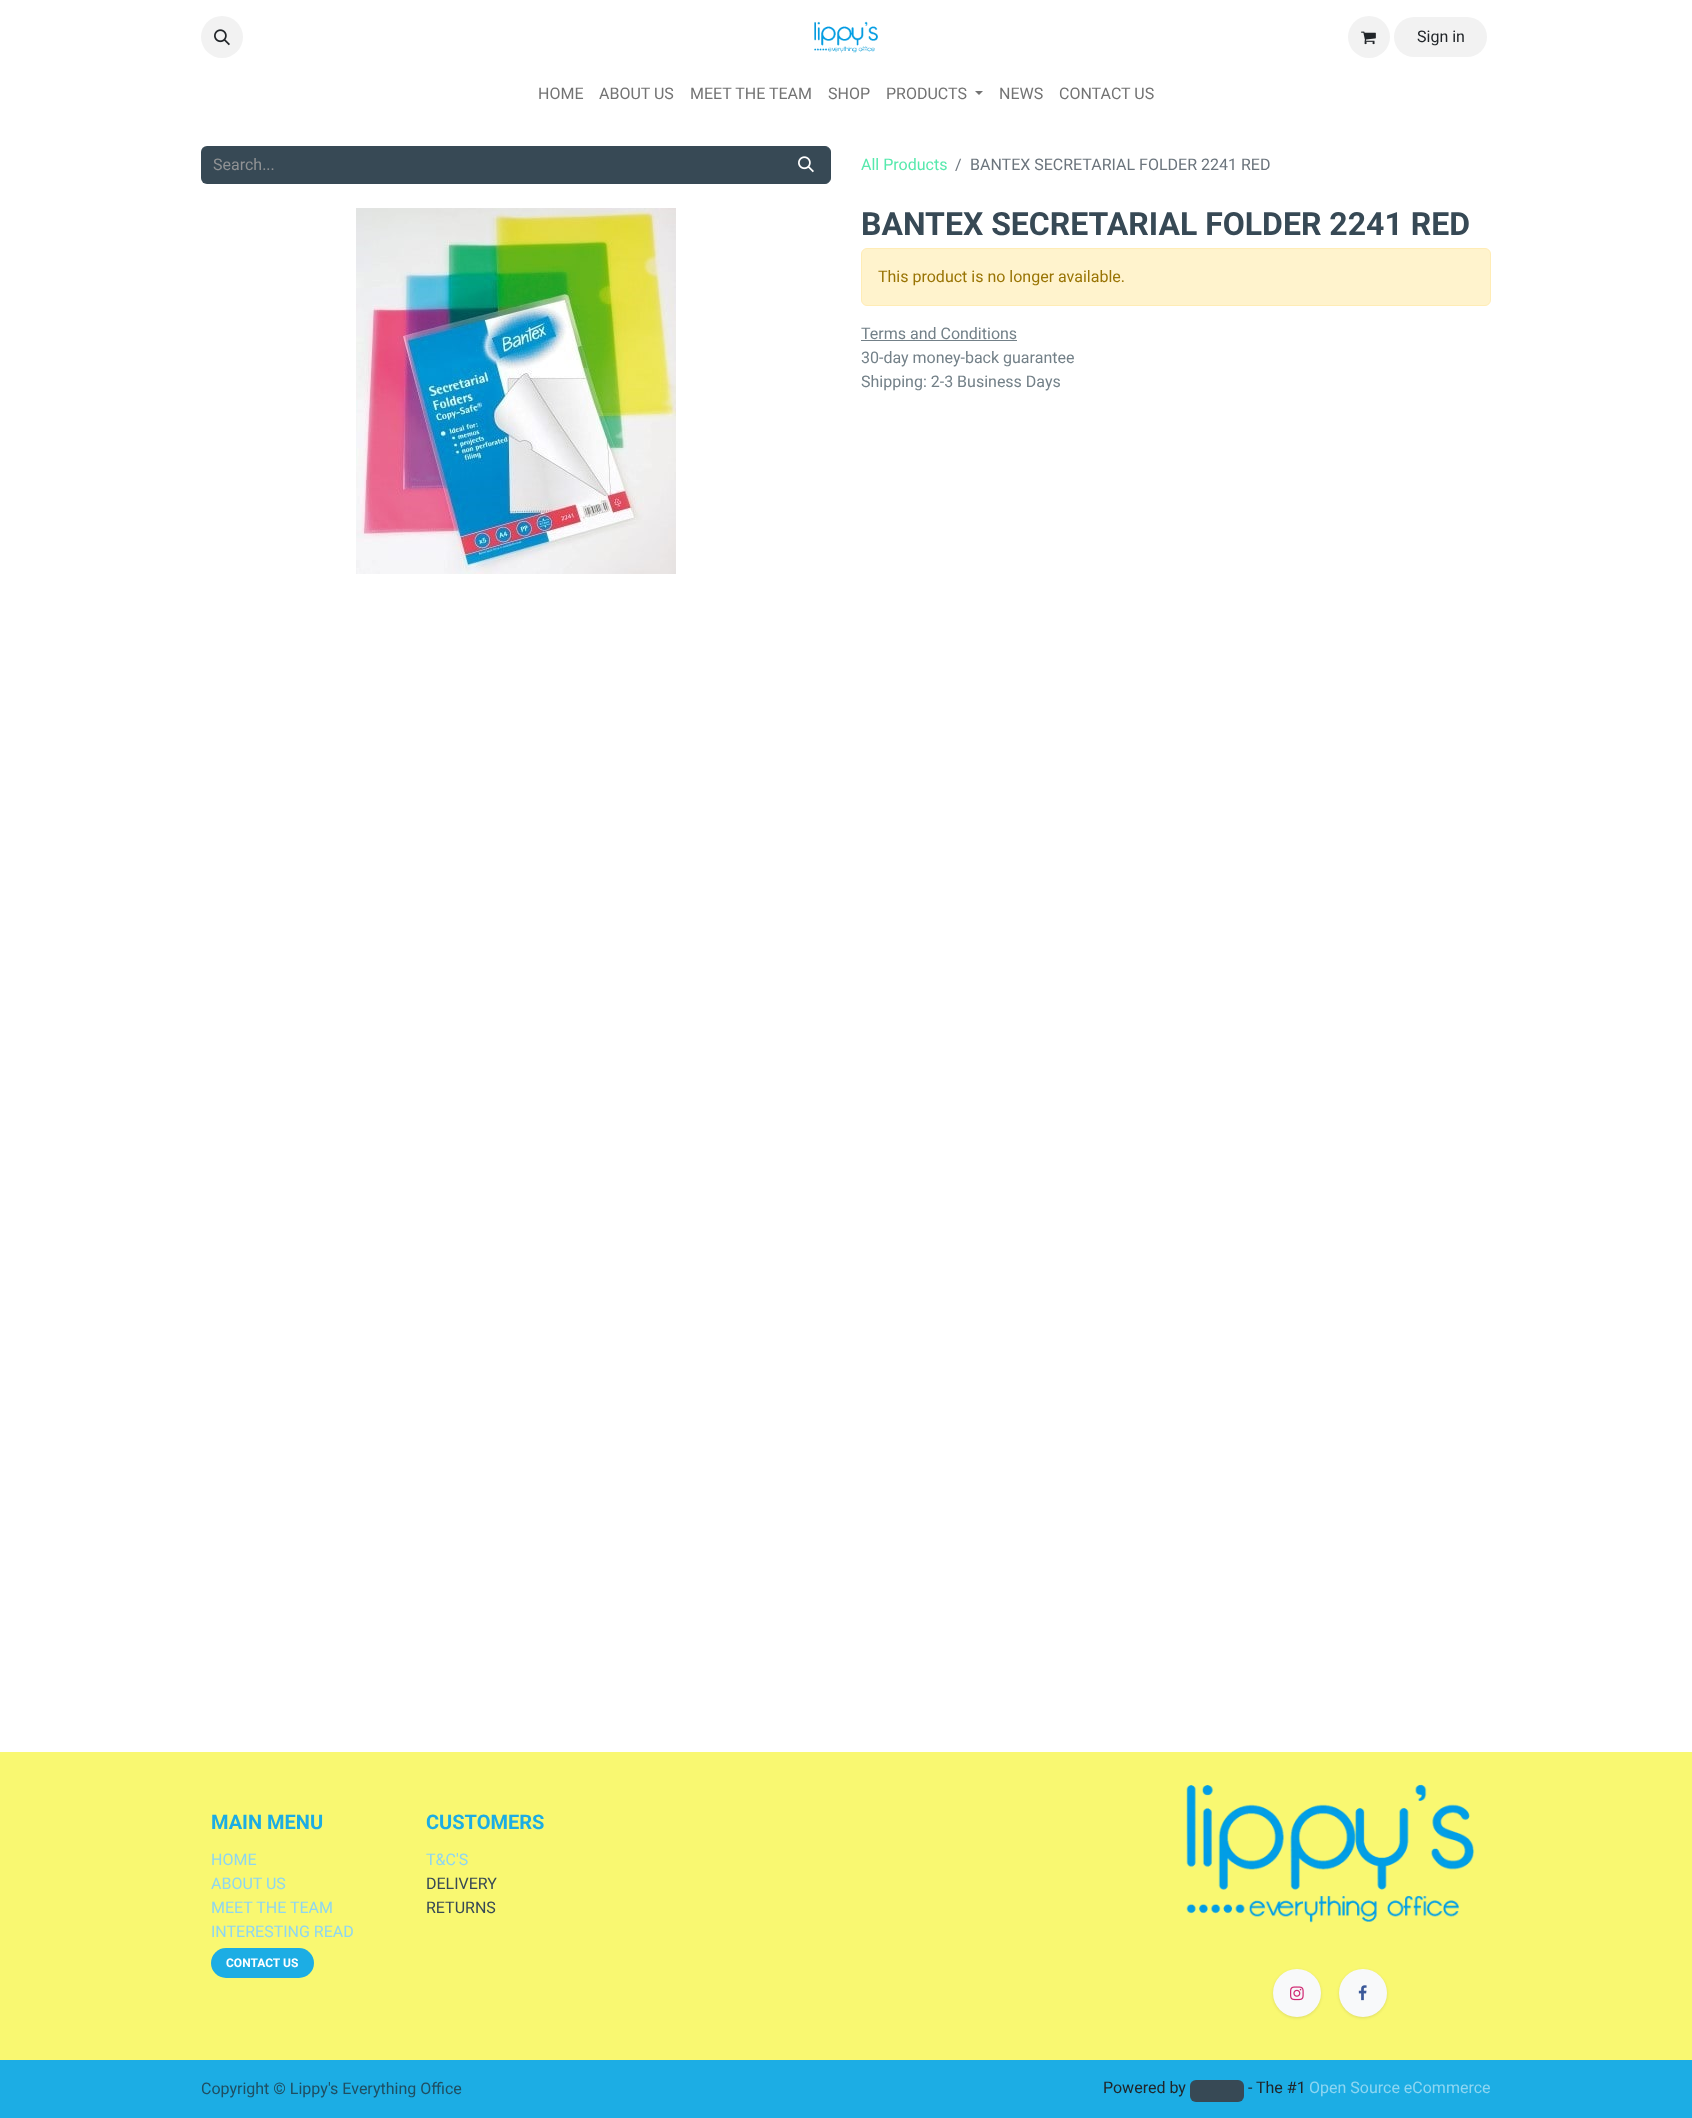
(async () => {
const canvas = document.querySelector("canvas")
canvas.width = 1692
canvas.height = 2118
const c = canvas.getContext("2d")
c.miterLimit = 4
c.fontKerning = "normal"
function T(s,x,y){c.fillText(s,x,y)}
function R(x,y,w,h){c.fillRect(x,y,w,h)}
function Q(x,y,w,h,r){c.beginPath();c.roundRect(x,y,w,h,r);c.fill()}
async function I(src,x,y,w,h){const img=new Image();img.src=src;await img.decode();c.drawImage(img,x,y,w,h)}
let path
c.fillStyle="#fff"
R(0,0,1692,2118)
c.fillStyle="#f2f2f2"
c.beginPath()
c.arc(222,37,21,0,7)
c.fill()
await I("1.png",214,29,16,17)
await I("2.png",814,21,64,32)
c.beginPath()
c.arc(1369,37,21,0,7)
c.fill()
await I("3.png",1361,31,15,14)
Q(1394,17,93,40,20)
c.font="16px Roboto"
c.fillStyle="#212529"
T("Sign in",1417,42)
c.fillStyle="#737373"
T("HOME",538,99)
T("ABOUT US",599,99)
T("MEET THE TEAM",690,99)
T("SHOP",828,99)
T("PRODUCTS",886,99)
path = new Path2D("M975 91h8l-4 4z")
c.fill(path)
T("NEWS",999,99)
T("CONTACT US",1059,99)
c.fillStyle="#374955"
c.beginPath()
c.roundRect(201,146,581,38,[6,0,0,6])
c.fill()
c.fillStyle="#909294"
T("Search...",213,170)
c.fillStyle="#374955"
c.beginPath()
c.roundRect(781.5,146.5,49,37,[0,5.5,5.5,0])
c.fill()
c.strokeStyle="#374955"
c.stroke()
await I("4.png",798,156,16,17)
c.fillStyle="#57e9ad"
T("All Products",861,170)
c.fillStyle="#6c757d"
T("/",955,170)
T("BANTEX SECRETARIAL FOLDER 2241 RED",970,170)
await I("5.png",356,208,320,366)
c.font="bold 32px Roboto"
c.fillStyle="#374955"
T("BANTEX SECRETARIAL FOLDER 2241 RED",861,235)
c.fillStyle="#fff3cd"
c.beginPath()
c.roundRect(861.5,248.5,629,57,5.5)
c.fill()
c.strokeStyle="#ffecb5"
c.stroke()
c.font="16px Roboto"
c.fillStyle="#997404"
T("This product is no longer available.",878,282)
c.fillStyle="#738088"
T("Terms and Conditions",861,339)
R(861,340,156,1)
T("30-day money-back guarantee",861,363)
T("Shipping: 2-3 Business Days",861,387)
c.fillStyle="#f9f871"
R(0,1752,1692,308)
c.font="bold 20px Roboto"
c.fillStyle="#1cade4"
T("MAIN MENU",211,1829)
T("CUSTOMERS",426,1829)
await I("6.png",1186,1784,289,139)
c.font="16px Roboto"
c.fillStyle="#8ed6f2"
T("HOME",211,1865)
T("ABOUT US",211,1889)
T("MEET THE TEAM",211,1913)
T("INTERESTING READ",211,1937)
c.fillStyle="#1cade4"
Q(211,1948,103,30,15)
c.font="bold 12px Roboto"
c.fillStyle="#fff"
T("CONTACT US",226,1967)
c.font="16px Roboto"
c.fillStyle="#8ed6f2"
T("T&C'S",426,1865)
c.fillStyle="#374955"
T("DELIVERY",426,1889)
T("RETURNS",426,1913)
c.fillStyle="#0000001a"
c.filter="blur(1.5px)"
c.beginPath()
c.roundRect(1273,1970,48,48,24)
c.fill()
c.filter="none"
c.fillStyle="#f8f9fa"
c.beginPath()
c.arc(1297,1993,24,0,7)
c.fill()
await I("7.png",1290,1986,14,15)
c.fillStyle="#0000001a"
c.filter="blur(1.5px)"
c.beginPath()
c.roundRect(1339,1970,48,48,24)
c.fill()
c.filter="none"
c.fillStyle="#f8f9fa"
c.beginPath()
c.arc(1363,1993,24,0,7)
c.fill()
await I("8.png",1358,1985,9,16)
c.fillStyle="#1cade4"
R(0,2060,1692,58)
c.fillStyle="#204e61"
T("Copyright © Lippy's Everything Office",201,2094)
c.fillStyle="#212529"
T("Powered by",1103,2093)
c.fillStyle="#374955"
Q(1190,2080,54,22,6)
c.fillStyle="#212529"
T("-",1248,2093)
T("The #1",1256,2093)
c.fillStyle="#8ed6f2"
T("Open Source eCommerce",1309,2093)
})()
